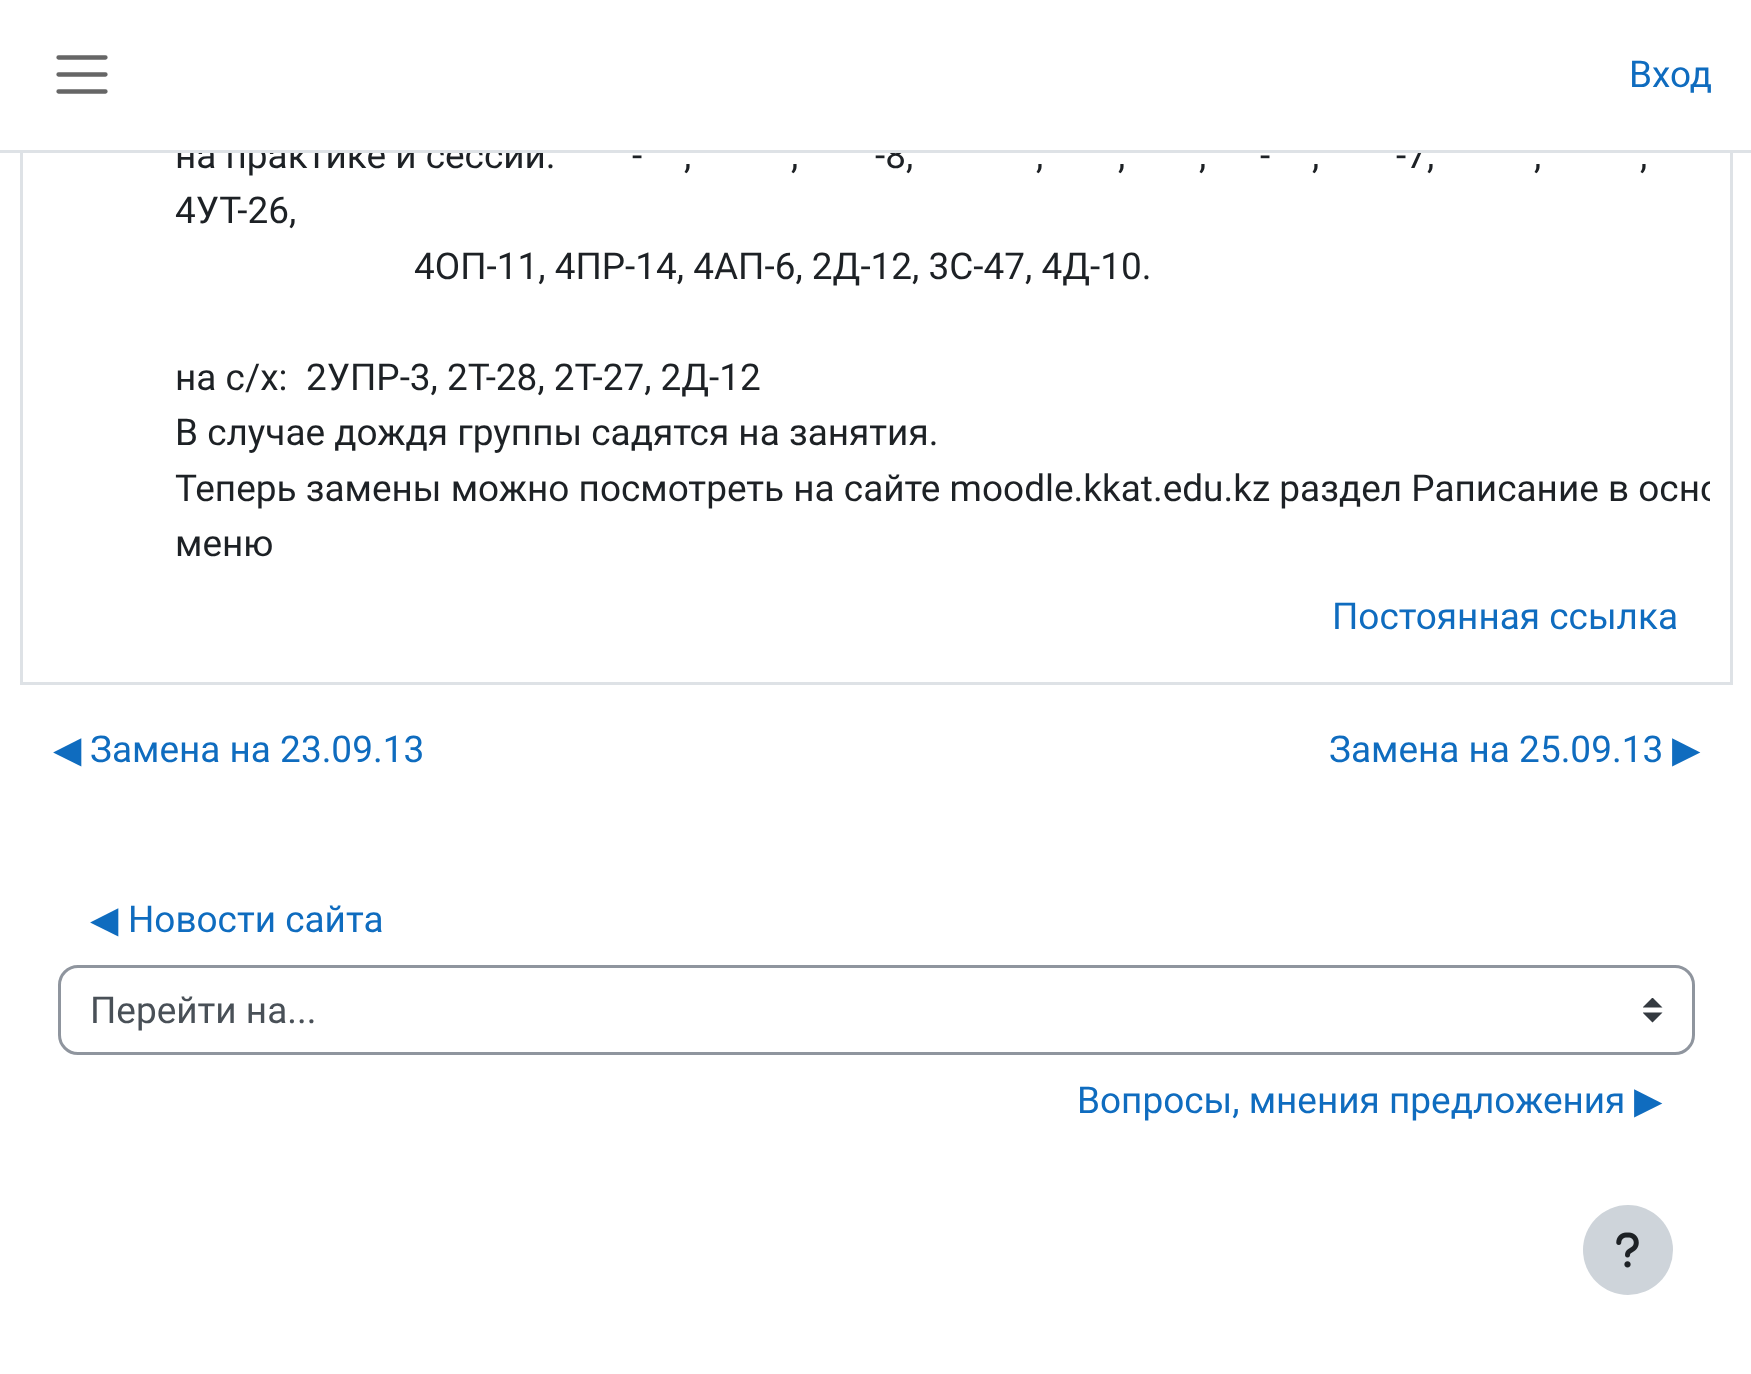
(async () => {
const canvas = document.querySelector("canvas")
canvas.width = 1751
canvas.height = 1374
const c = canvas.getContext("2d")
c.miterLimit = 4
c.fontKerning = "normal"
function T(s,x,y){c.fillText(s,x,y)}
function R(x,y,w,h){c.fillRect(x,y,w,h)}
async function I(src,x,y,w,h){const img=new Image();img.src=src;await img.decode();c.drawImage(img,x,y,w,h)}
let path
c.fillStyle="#fff"
R(0,0,1751,1374)
c.strokeStyle="#dee2e6"
c.lineWidth=3
c.strokeRect(21.5,-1.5,1710,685)
c.font="36.95px Roboto"
c.fillStyle="#1d2125"
T("на практике и сессии:",175,168)
T("-8,",875,168)
T("-7,",1396,168)
c.fillStyle="#fff"
R(20,0,1713,150)
c.fillStyle="#dee2e6"
R(0,150,1751,3)
path = new Path2D("M58.5 57.5h47m-47 17h47m-47 17h47")
c.strokeStyle="#666"
c.lineWidth=4.3
c.lineCap="round"
c.stroke(path)
c.fillStyle="#0f6cbf"
T("Вход",1629,87)
c.fillStyle="#1d2125"
T("-",632,168)
T("-",1260,168)
T(",",684,168)
T(",",791,168)
T(",",1036,168)
T(",",1118,168)
T(",",1199,168)
T(",",1312,168)
T(",",1534,168)
T(",",1640,168)
T("4УТ-26,",175,223)
T("4ОП-11, 4ПР-14, 4АП-6, 2Д-12, 3С-47, 4Д-10.",414,279)
T("на с/х:",175,390)
T("2УПР-3, 2Т-28, 2Т-27, 2Д-12",306,390)
T("В случае дождя группы садятся на занятия.",175,445)
c.save()
c.beginPath()
c.rect(175,0,1535,663)
c.clip()
T("Теперь замены можно посмотреть на сайте moodle.kkat.edu.kz раздел Раписание в осно",175,501)
c.restore()
T("меню",175,556)
c.fillStyle="#0f6cbf"
T("Постоянная ссылка",1332,629)
c.font="36.95px DejaVu Sans"
T("◀︎",53,762)
c.font="36.95px Roboto"
T("Замена на 23.09.13",90,762)
T("Замена на 25.09.13",1329,762)
c.font="36.95px DejaVu Sans"
T("▶︎",1672,762)
T("◀︎",90,932)
c.font="36.95px Roboto"
T("Новости сайта",128,932)
c.save()
c.beginPath()
c.rect(1643,998,20,25)
c.clip()
c.fillStyle="#343a40"
path = new Path2D("M1652.5 997.5l-10 10h20zm0 25l-10-10h20z")
c.fill(path)
c.restore()
c.beginPath()
c.roundRect(59.5,966.5,1634,87,18.5)
c.strokeStyle="#8f959e"
c.lineWidth=3
c.stroke()
c.fillStyle="#495057"
T("Перейти на...",90,1023)
c.fillStyle="#0f6cbf"
T("Вопросы, мнения предложения",1077,1113)
c.font="36.95px DejaVu Sans"
T("▶︎",1634,1113)
c.fillStyle="#ced4da"
c.beginPath()
c.arc(1628,1250,45,0,7)
c.fill()
await I("1.png",1616,1232,23,36)
})()
